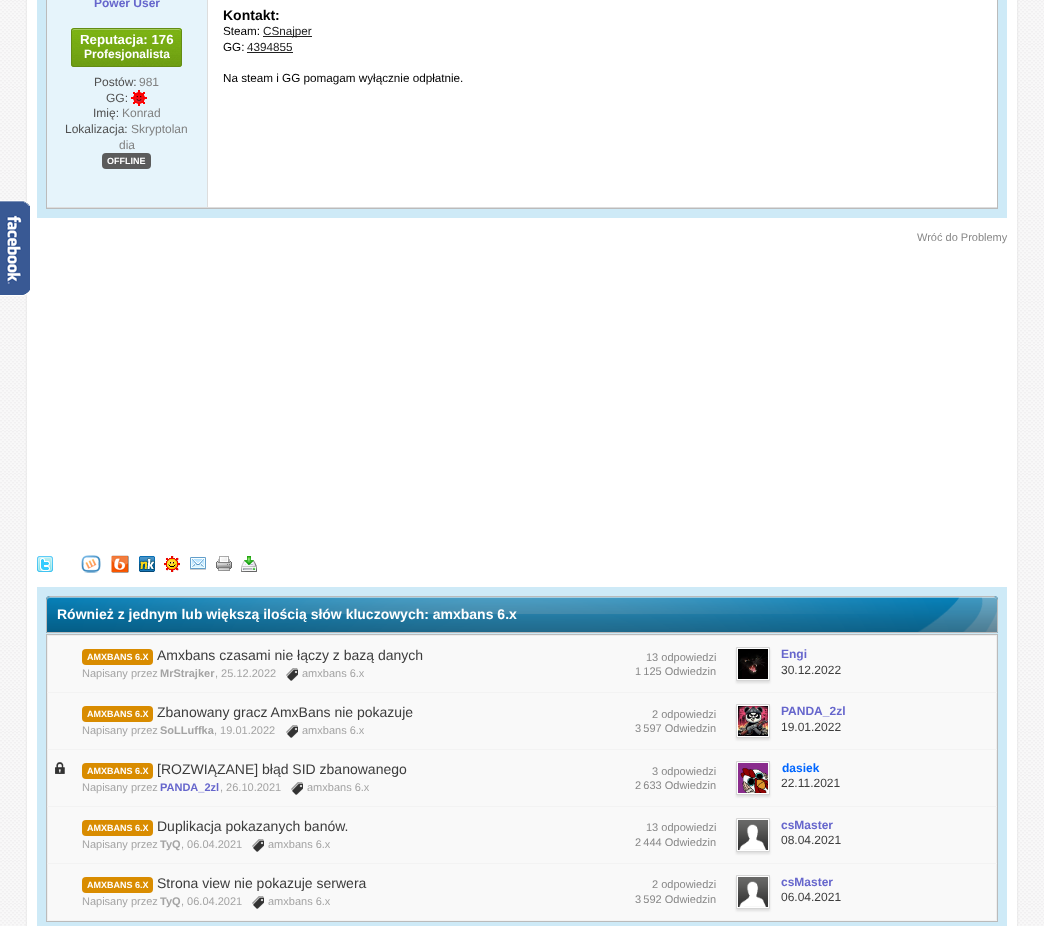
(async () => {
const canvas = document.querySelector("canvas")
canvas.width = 1044
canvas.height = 926
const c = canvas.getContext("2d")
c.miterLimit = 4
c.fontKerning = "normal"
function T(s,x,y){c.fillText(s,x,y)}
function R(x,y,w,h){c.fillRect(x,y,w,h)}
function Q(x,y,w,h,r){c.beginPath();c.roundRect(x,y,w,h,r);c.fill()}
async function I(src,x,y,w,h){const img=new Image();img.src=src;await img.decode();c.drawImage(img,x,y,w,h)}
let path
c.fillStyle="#fff"
R(0,0,1044,926)
await I("1.png",0,0,1044,926)
c.fillStyle="#dbdbdb"
c.filter="blur(1px)"
c.beginPath()
c.rect(27,-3,990,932)
c.fill()
c.filter="none"
c.fillStyle="#fff"
R(27,0,990,926)
await I("2.png",0,200,30,96)
c.fillStyle="#ceeaf7"
R(37,0,970,218)
c.strokeStyle="#bbb"
c.strokeRect(46.5,-.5,951,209)
c.fillStyle="#ddd"
R(47,207,950,1)
c.fillStyle="#e6f4fb"
R(47,0,160,207)
c.font="bold 12px Liberation Sans"
c.fillStyle="#66c"
T("Power User",94,7)
c.fillStyle="#95d913"
Q(71,28,111,39,3)
await I("3.png",71,29,111,38)
c.fillStyle="#ffffff4d"
path = new Path2D("M74 30h105c1 0 2 1 2 2c0-1 0-3-2-3h-105c-2 0-2 2-2 3c0-1 1-2 2-2z")
c.fill(path)
c.beginPath()
c.roundRect(71.5,28.5,110,38,2.5)
c.strokeStyle="#638c13"
c.stroke()
c.font="bold 13.25px Liberation Sans"
c.fillStyle="#fff"
T("Reputacja: 176",80,44)
c.font="bold 12px Liberation Sans"
T("Profesjonalista",84,58)
c.font="12px Liberation Sans"
c.fillStyle="#505050"
T("Postów:",94,86)
c.fillStyle="#818181"
T("981",139,86)
c.fillStyle="#505050"
T("GG:",106,102)
await I("4.png",131,90,16,16)
T("Imię:",93,117)
c.fillStyle="#818181"
T("Konrad",122,117)
c.fillStyle="#505050"
T("Lokalizacja:",65,133)
c.fillStyle="#818181"
T("Skryptolan",131,133)
T("dia",119,149)
c.fillStyle="#5b5b5b"
Q(102,153,49,16,4)
c.font="bold 9px Liberation Sans"
c.fillStyle="#fff"
T("OFFLINE",107,164)
R(208,0,789,207)
c.fillStyle="#ddd"
R(207,0,1,207)
c.font="bold 14px Liberation Sans"
c.fillStyle="#000"
T("Kontakt:",223,20)
c.font="11.7px Liberation Sans"
T("Steam:",223,35)
c.fillStyle="#212121"
R(263,36,49,1)
T("CSnajper",263,35)
c.fillStyle="#000"
T("GG:",223,51)
c.fillStyle="#212121"
T("4394855",247,51)
R(247,52,46,1)
c.fillStyle="#000"
T("Na steam i GG pomagam wyłącznie odpłatnie.",223,82)
c.font="11px Liberation Sans"
c.fillStyle="#888"
T("Wróć do Problemy",917,241)
await I("5.png",37,556,16,16)
await I("6.png",81,555,20,18)
await I("7.png",111,555,18,18)
await I("8.png",139,556,16,16)
await I("9.png",164,556,16,16)
await I("10.png",190,557,16,13)
await I("11.png",216,556,16,15)
await I("12.png",241,556,16,16)
c.fillStyle="#ceeaf7"
R(37,587,970,339)
c.fillStyle="#0895d6"
c.beginPath()
c.roundRect(46,596,952,37,[4,4,0,0])
c.fill()
await I("13.png",46,596,952,36)
c.fillStyle="#ffffff80"
path = new Path2D("M50 598h944c2 0 3 1 3 3c0-2-1-4-3-4h-944c-2 0-3 2-3 4c0-2 1-3 3-3z")
c.fill(path)
c.beginPath()
c.roundRect(46.5,596.5,951,36,[3.5,3.5,0,0])
c.strokeStyle="#bbb"
c.stroke()
c.font="bold 14px Liberation Sans"
c.fillStyle="#fff"
T("Również z jednym lub większą ilością słów kluczowych: amxbans 6.x",57,619)
c.strokeRect(46.5,634.5,951,287)
c.fillStyle="#f9f9f9"
R(48,636,948,56)
c.fillStyle="#eee"
R(47,635,950,1)
R(996,692,1,229)
R(996,635,1,58)
R(47,692,1,229)
R(47,635,1,58)
c.fillStyle="#d98c00"
Q(82,649,71,16,4)
c.font="bold 9px Liberation Sans"
c.fillStyle="#fff"
T("AMXBANS 6.X",87,660)
c.font="14px Liberation Sans"
c.fillStyle="#3c3c3c"
T("Amxbans czasami nie łączy z bazą danych",157,660)
c.font="11px Liberation Sans"
c.fillStyle="#a4a4a4"
T("Napisany przez",82,677)
c.font="bold 11px Liberation Sans"
T("MrStrajker",160,677)
c.font="11px Liberation Sans"
T(", 25.12.2022",215,677)
await I("14.png",286,668,12,13)
T("amxbans 6.x",302,677)
c.fillStyle="#888"
T("13 odpowiedzi",646,661)
T("1 125 Odwiedzin",635,675)
c.fillStyle="#f3f3f3"
R(47,692,950,1)
c.fillStyle="#0000001a"
c.filter="blur(1px)"
c.beginPath()
c.rect(736,649,34,34)
c.fill()
c.filter="none"
c.fillStyle="#fff"
c.beginPath()
c.rect(736.5,647.5,33,33)
c.fill()
c.strokeStyle="#d5d5d5"
c.stroke()
await I("15.png",738,649,30,30)
c.font="bold 12px Liberation Sans"
c.fillStyle="#66c"
T("Engi",781,658)
c.font="12px Liberation Sans"
c.fillStyle="#3c3c3c"
T("30.12.2022",781,674)
c.fillStyle="#f9f9f9"
R(48,693,948,56)
c.fillStyle="#d98c00"
Q(82,706,71,16,4)
c.font="bold 9px Liberation Sans"
c.fillStyle="#fff"
T("AMXBANS 6.X",87,717)
c.font="14px Liberation Sans"
c.fillStyle="#3c3c3c"
T("Zbanowany gracz AmxBans nie pokazuje",157,717)
c.font="11px Liberation Sans"
c.fillStyle="#a4a4a4"
T("Napisany przez",82,734)
c.font="bold 11px Liberation Sans"
T("SoLLuffka",160,734)
c.font="11px Liberation Sans"
T(", 19.01.2022",214,734)
await I("14.png",286,725,12,13)
T("amxbans 6.x",302,734)
c.fillStyle="#888"
T("2 odpowiedzi",652,718)
T("3 597 Odwiedzin",635,732)
c.fillStyle="#f3f3f3"
R(47,749,950,1)
c.fillStyle="#0000001a"
c.filter="blur(1px)"
c.beginPath()
c.rect(736,706,34,34)
c.fill()
c.filter="none"
c.fillStyle="#fff"
c.beginPath()
c.rect(736.5,704.5,33,33)
c.fill()
c.stroke()
await I("16.png",738,706,30,30)
c.font="bold 12px Liberation Sans"
c.fillStyle="#66c"
T("PANDA_2zl",781,715)
c.font="12px Liberation Sans"
c.fillStyle="#3c3c3c"
T("19.01.2022",781,731)
c.fillStyle="#f9f9f9"
R(48,750,948,56)
await I("17.png",55,762,10,12)
c.fillStyle="#d98c00"
Q(82,763,71,16,4)
c.font="bold 9px Liberation Sans"
c.fillStyle="#fff"
T("AMXBANS 6.X",87,774)
c.font="14px Liberation Sans"
c.fillStyle="#3c3c3c"
T("[ROZWIĄZANE] błąd SID zbanowanego",157,774)
c.font="11px Liberation Sans"
c.fillStyle="#a4a4a4"
T("Napisany przez",82,791)
c.font="bold 11px Liberation Sans"
c.fillStyle="#66c"
T("PANDA_2zl",160,791)
c.font="11px Liberation Sans"
c.fillStyle="#a4a4a4"
T(", 26.10.2021",220,791)
await I("14.png",291,782,12,13)
T("amxbans 6.x",307,791)
c.fillStyle="#888"
T("3 odpowiedzi",652,775)
T("2 633 Odwiedzin",635,789)
c.fillStyle="#f3f3f3"
R(47,806,950,1)
c.fillStyle="#0000001a"
c.filter="blur(1px)"
c.beginPath()
c.rect(736,763,34,34)
c.fill()
c.filter="none"
c.fillStyle="#fff"
c.beginPath()
c.rect(736.5,761.5,33,33)
c.fill()
c.stroke()
await I("18.png",738,763,30,30)
c.font="bold 12px Liberation Sans"
c.fillStyle="#06f"
T("dasiek",782,772)
c.font="12px Liberation Sans"
c.fillStyle="#3c3c3c"
T("22.11.2021",781,787)
c.fillStyle="#f9f9f9"
R(48,807,948,56)
c.fillStyle="#d98c00"
Q(82,820,71,16,4)
c.font="bold 9px Liberation Sans"
c.fillStyle="#fff"
T("AMXBANS 6.X",87,831)
c.font="14px Liberation Sans"
c.fillStyle="#3c3c3c"
T("Duplikacja pokazanych banów.",157,831)
c.font="11px Liberation Sans"
c.fillStyle="#a4a4a4"
T("Napisany przez",82,848)
c.font="bold 11px Liberation Sans"
T("TyQ",160,848)
c.font="11px Liberation Sans"
T(", 06.04.2021",181,848)
await I("14.png",252,839,12,13)
T("amxbans 6.x",268,848)
c.fillStyle="#888"
T("13 odpowiedzi",646,831)
T("2 444 Odwiedzin",635,846)
c.fillStyle="#f3f3f3"
R(47,863,950,1)
c.fillStyle="#0000001a"
c.filter="blur(1px)"
c.beginPath()
c.rect(736,820,34,34)
c.fill()
c.filter="none"
c.fillStyle="#fff"
c.beginPath()
c.rect(736.5,818.5,33,33)
c.fill()
c.stroke()
await I("19.png",738,820,30,30)
c.font="bold 12px Liberation Sans"
c.fillStyle="#66c"
T("csMaster",781,829)
c.font="12px Liberation Sans"
c.fillStyle="#3c3c3c"
T("08.04.2021",781,844)
c.fillStyle="#f9f9f9"
R(48,864,948,56)
c.fillStyle="#d98c00"
Q(82,877,71,16,4)
c.font="bold 9px Liberation Sans"
c.fillStyle="#fff"
T("AMXBANS 6.X",87,888)
c.font="14px Liberation Sans"
c.fillStyle="#3c3c3c"
T("Strona view nie pokazuje serwera",157,888)
c.font="11px Liberation Sans"
c.fillStyle="#a4a4a4"
T("Napisany przez",82,905)
c.font="bold 11px Liberation Sans"
T("TyQ",160,905)
c.font="11px Liberation Sans"
T(", 06.04.2021",181,905)
await I("14.png",252,896,12,13)
T("amxbans 6.x",268,905)
c.fillStyle="#888"
T("2 odpowiedzi",652,888)
T("3 592 Odwiedzin",635,903)
c.fillStyle="#f3f3f3"
R(47,920,950,1)
c.fillStyle="#0000001a"
c.filter="blur(1px)"
c.beginPath()
c.rect(736,877,34,34)
c.fill()
c.filter="none"
c.fillStyle="#fff"
c.beginPath()
c.rect(736.5,875.5,33,33)
c.fill()
c.stroke()
await I("19.png",738,877,30,30)
c.font="bold 12px Liberation Sans"
c.fillStyle="#66c"
T("csMaster",781,886)
c.font="12px Liberation Sans"
c.fillStyle="#3c3c3c"
T("06.04.2021",781,901)
})()
